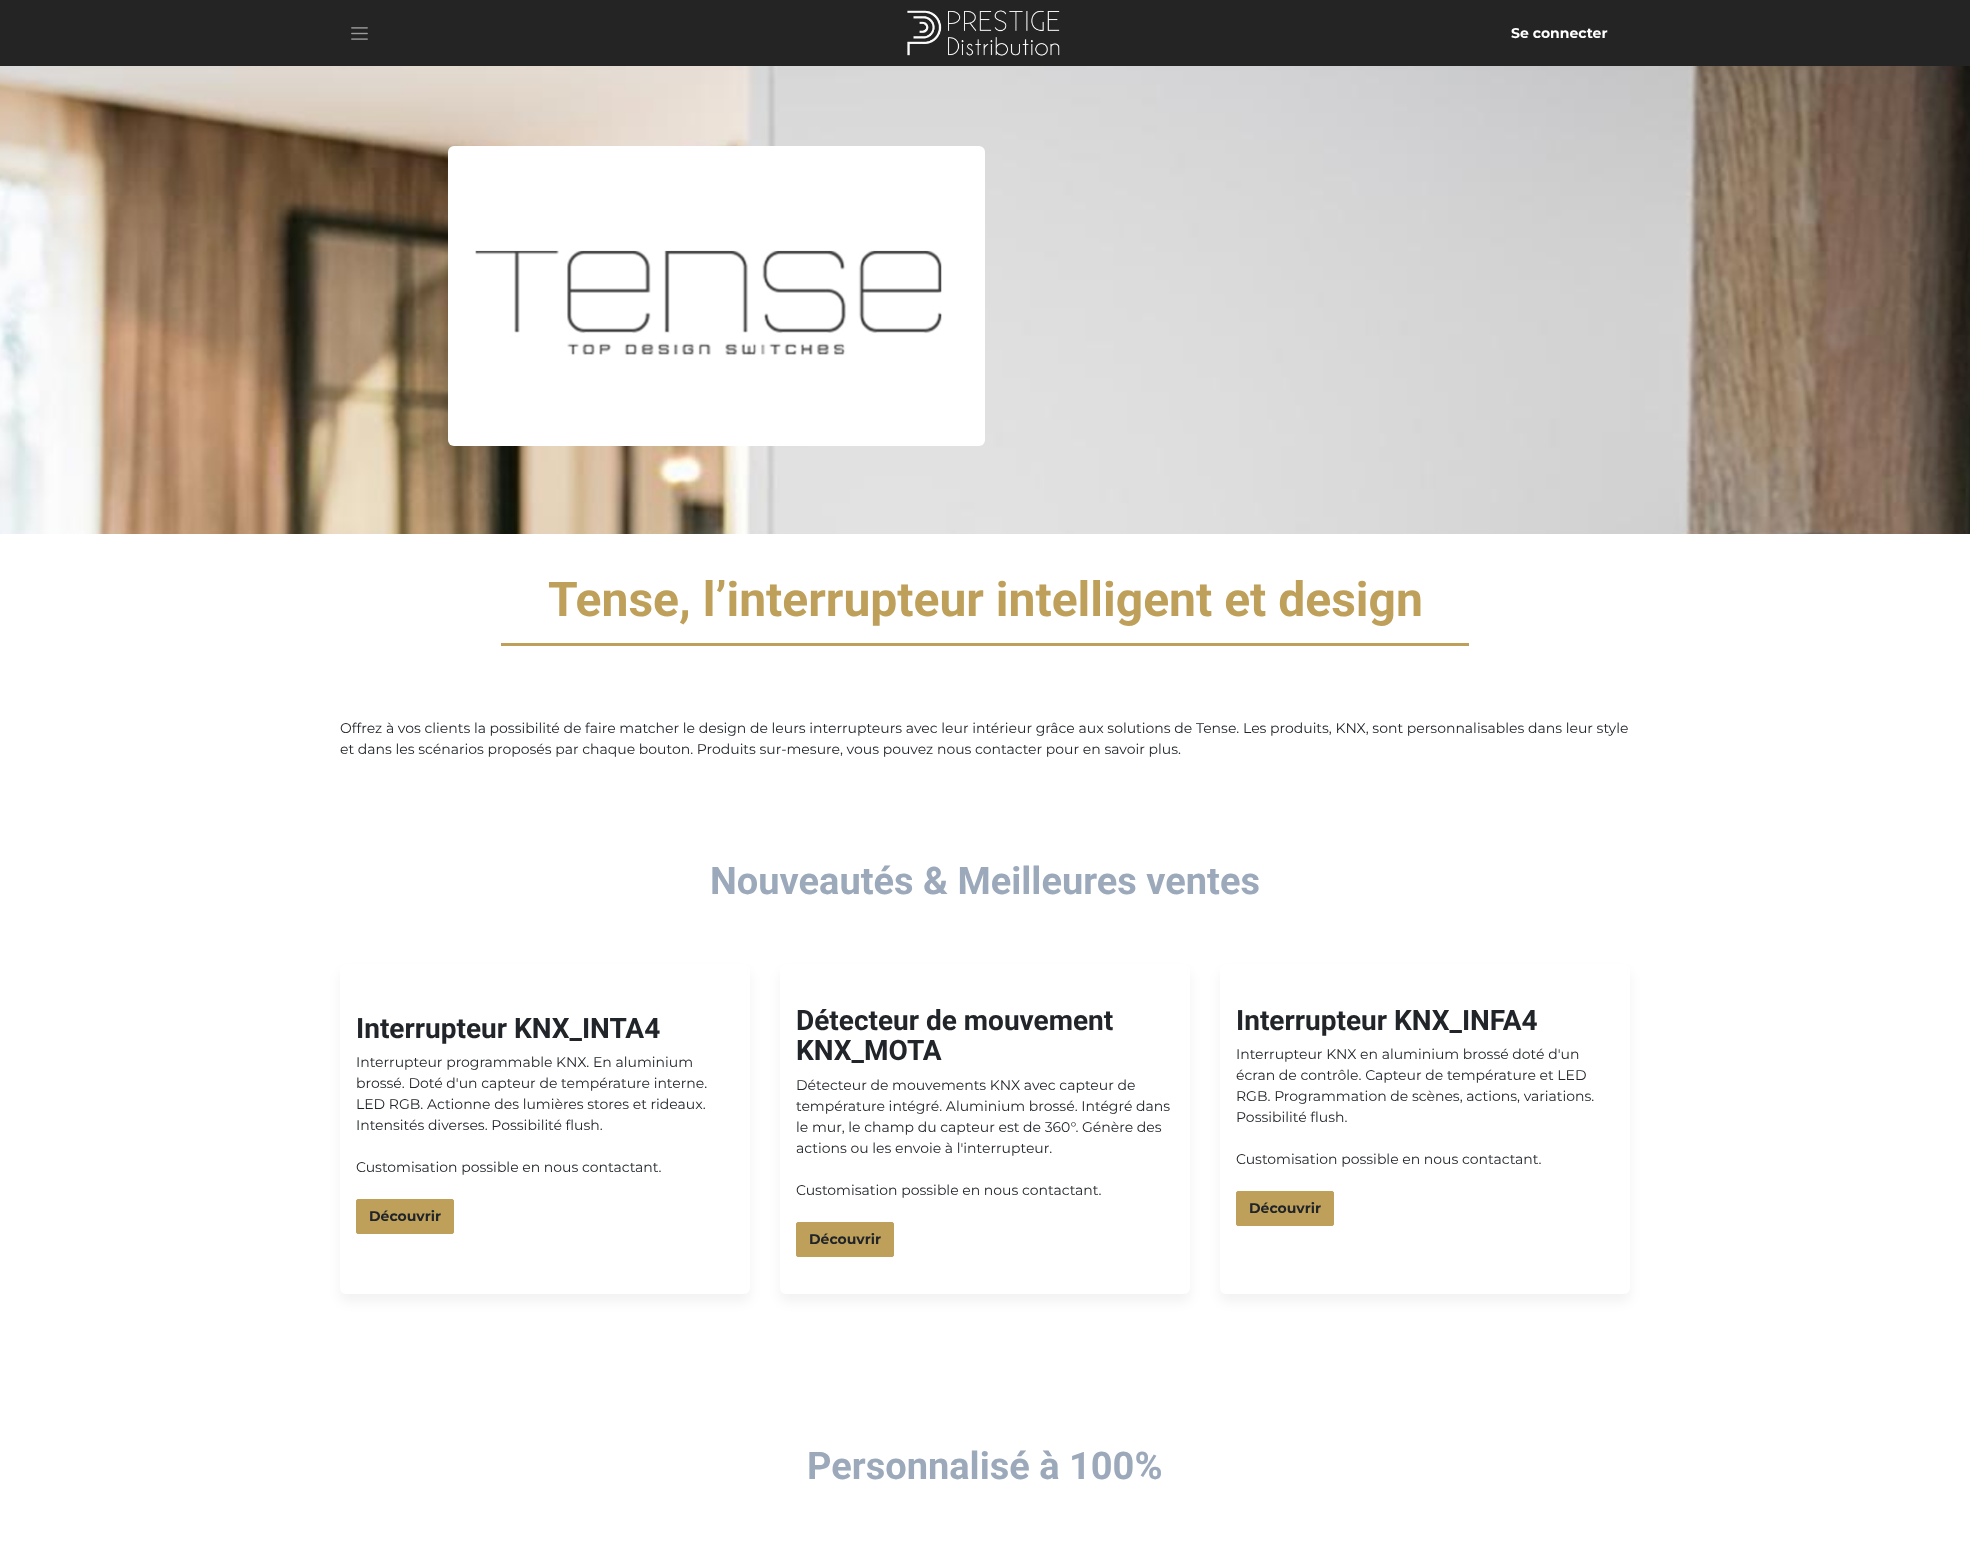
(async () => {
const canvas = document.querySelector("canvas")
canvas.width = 1970
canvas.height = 1560
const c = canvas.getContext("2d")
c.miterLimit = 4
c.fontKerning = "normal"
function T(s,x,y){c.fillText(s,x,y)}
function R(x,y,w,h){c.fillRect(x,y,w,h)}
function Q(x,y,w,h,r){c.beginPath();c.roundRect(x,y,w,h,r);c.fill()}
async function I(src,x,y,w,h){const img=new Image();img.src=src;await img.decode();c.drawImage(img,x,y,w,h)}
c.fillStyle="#fff"
R(0,0,1970,1560)
c.fillStyle="#242424"
R(0,0,1970,66)
await I("1.png",351,27,17,13)
await I("2.png",907,10,153,46)
c.font="bold 14px Montserrat"
c.fillStyle="#fff"
T("Se connecter",1511,38)
await I("3.png",0,66,1970,468)
Q(448,146,537,300,6)
await I("4.png",475,250,467,105)
c.font="bold 48px Roboto"
c.fillStyle="#bea05a"
T("Tense, l’interrupteur intelligent et design",548,616)
R(501,643,968,3)
c.font="14px Montserrat"
c.fillStyle="#212529"
T("Offrez à vos clients la possibilité de faire matcher le design de leurs interrupteurs avec leur intérieur grâce aux solutions de Tense. Les produits, KNX, sont personnalisables dans leur style",340,733)
T("et dans les scénarios proposés par chaque bouton. Produits sur-mesure, vous pouvez nous contacter pour en savoir plus.",340,754)
c.font="bold 38px Roboto"
c.fillStyle="#9ba9bb"
T("Nouveautés & Meilleures ventes",710,894)
c.fillStyle="#0000000d"
c.filter="blur(6px)"
c.beginPath()
c.roundRect(340,972,410,330,6)
c.fill()
c.filter="none"
c.fillStyle="#fff"
Q(340,964,410,330,6)
c.font="bold 28px Roboto"
c.fillStyle="#212529"
T("Interrupteur KNX_INTA4",356,1038)
c.font="14px Montserrat"
T("Interrupteur programmable KNX. En aluminium",356,1067)
T("brossé. Doté d'un capteur de température interne.",356,1088)
T("LED RGB. Actionne des lumières stores et rideaux.",356,1109)
T("Intensités diverses. Possibilité flush.",356,1130)
T("Customisation possible en nous contactant.",356,1172)
c.fillStyle="#bea05a"
c.beginPath()
c.roundRect(356.5,1199.5,97,34,1.5)
c.fill()
c.strokeStyle="#bea05a"
c.stroke()
c.font="bold 14px Montserrat"
c.fillStyle="#212529"
T("Découvrir",369,1221)
c.fillStyle="#0000000d"
c.filter="blur(6px)"
c.beginPath()
c.roundRect(780,972,410,330,6)
c.fill()
c.filter="none"
c.fillStyle="#fff"
Q(780,964,410,330,6)
c.font="bold 28px Roboto"
c.fillStyle="#212529"
T("Détecteur de mouvement",796,1030)
T("KNX_MOTA",796,1060)
c.font="14px Montserrat"
T("Détecteur de mouvements KNX avec capteur de",796,1090)
T("température intégré. Aluminium brossé. Intégré dans",796,1111)
T("le mur, le champ du capteur est de 360°. Génère des",796,1132)
T("actions ou les envoie à l'interrupteur.",796,1153)
T("Customisation possible en nous contactant.",796,1195)
c.fillStyle="#bea05a"
c.beginPath()
c.roundRect(796.5,1222.5,97,34,1.5)
c.fill()
c.stroke()
c.font="bold 14px Montserrat"
c.fillStyle="#212529"
T("Découvrir",809,1244)
c.fillStyle="#0000000d"
c.filter="blur(6px)"
c.beginPath()
c.roundRect(1220,972,410,330,6)
c.fill()
c.filter="none"
c.fillStyle="#fff"
Q(1220,964,410,330,6)
c.font="bold 28px Roboto"
c.fillStyle="#212529"
T("Interrupteur KNX_INFA4",1236,1030)
c.font="14px Montserrat"
T("Interrupteur KNX en aluminium brossé doté d'un",1236,1059)
T("écran de contrôle. Capteur de température et LED",1236,1080)
T("RGB. Programmation de scènes, actions, variations.",1236,1101)
T("Possibilité flush.",1236,1122)
T("Customisation possible en nous contactant.",1236,1164)
c.fillStyle="#bea05a"
c.beginPath()
c.roundRect(1236.5,1191.5,97,34,1.5)
c.fill()
c.stroke()
c.font="bold 14px Montserrat"
c.fillStyle="#212529"
T("Découvrir",1249,1213)
c.font="bold 38px Roboto"
c.fillStyle="#9ba9bb"
T("Personnalisé à 100%",807,1479)
})()
